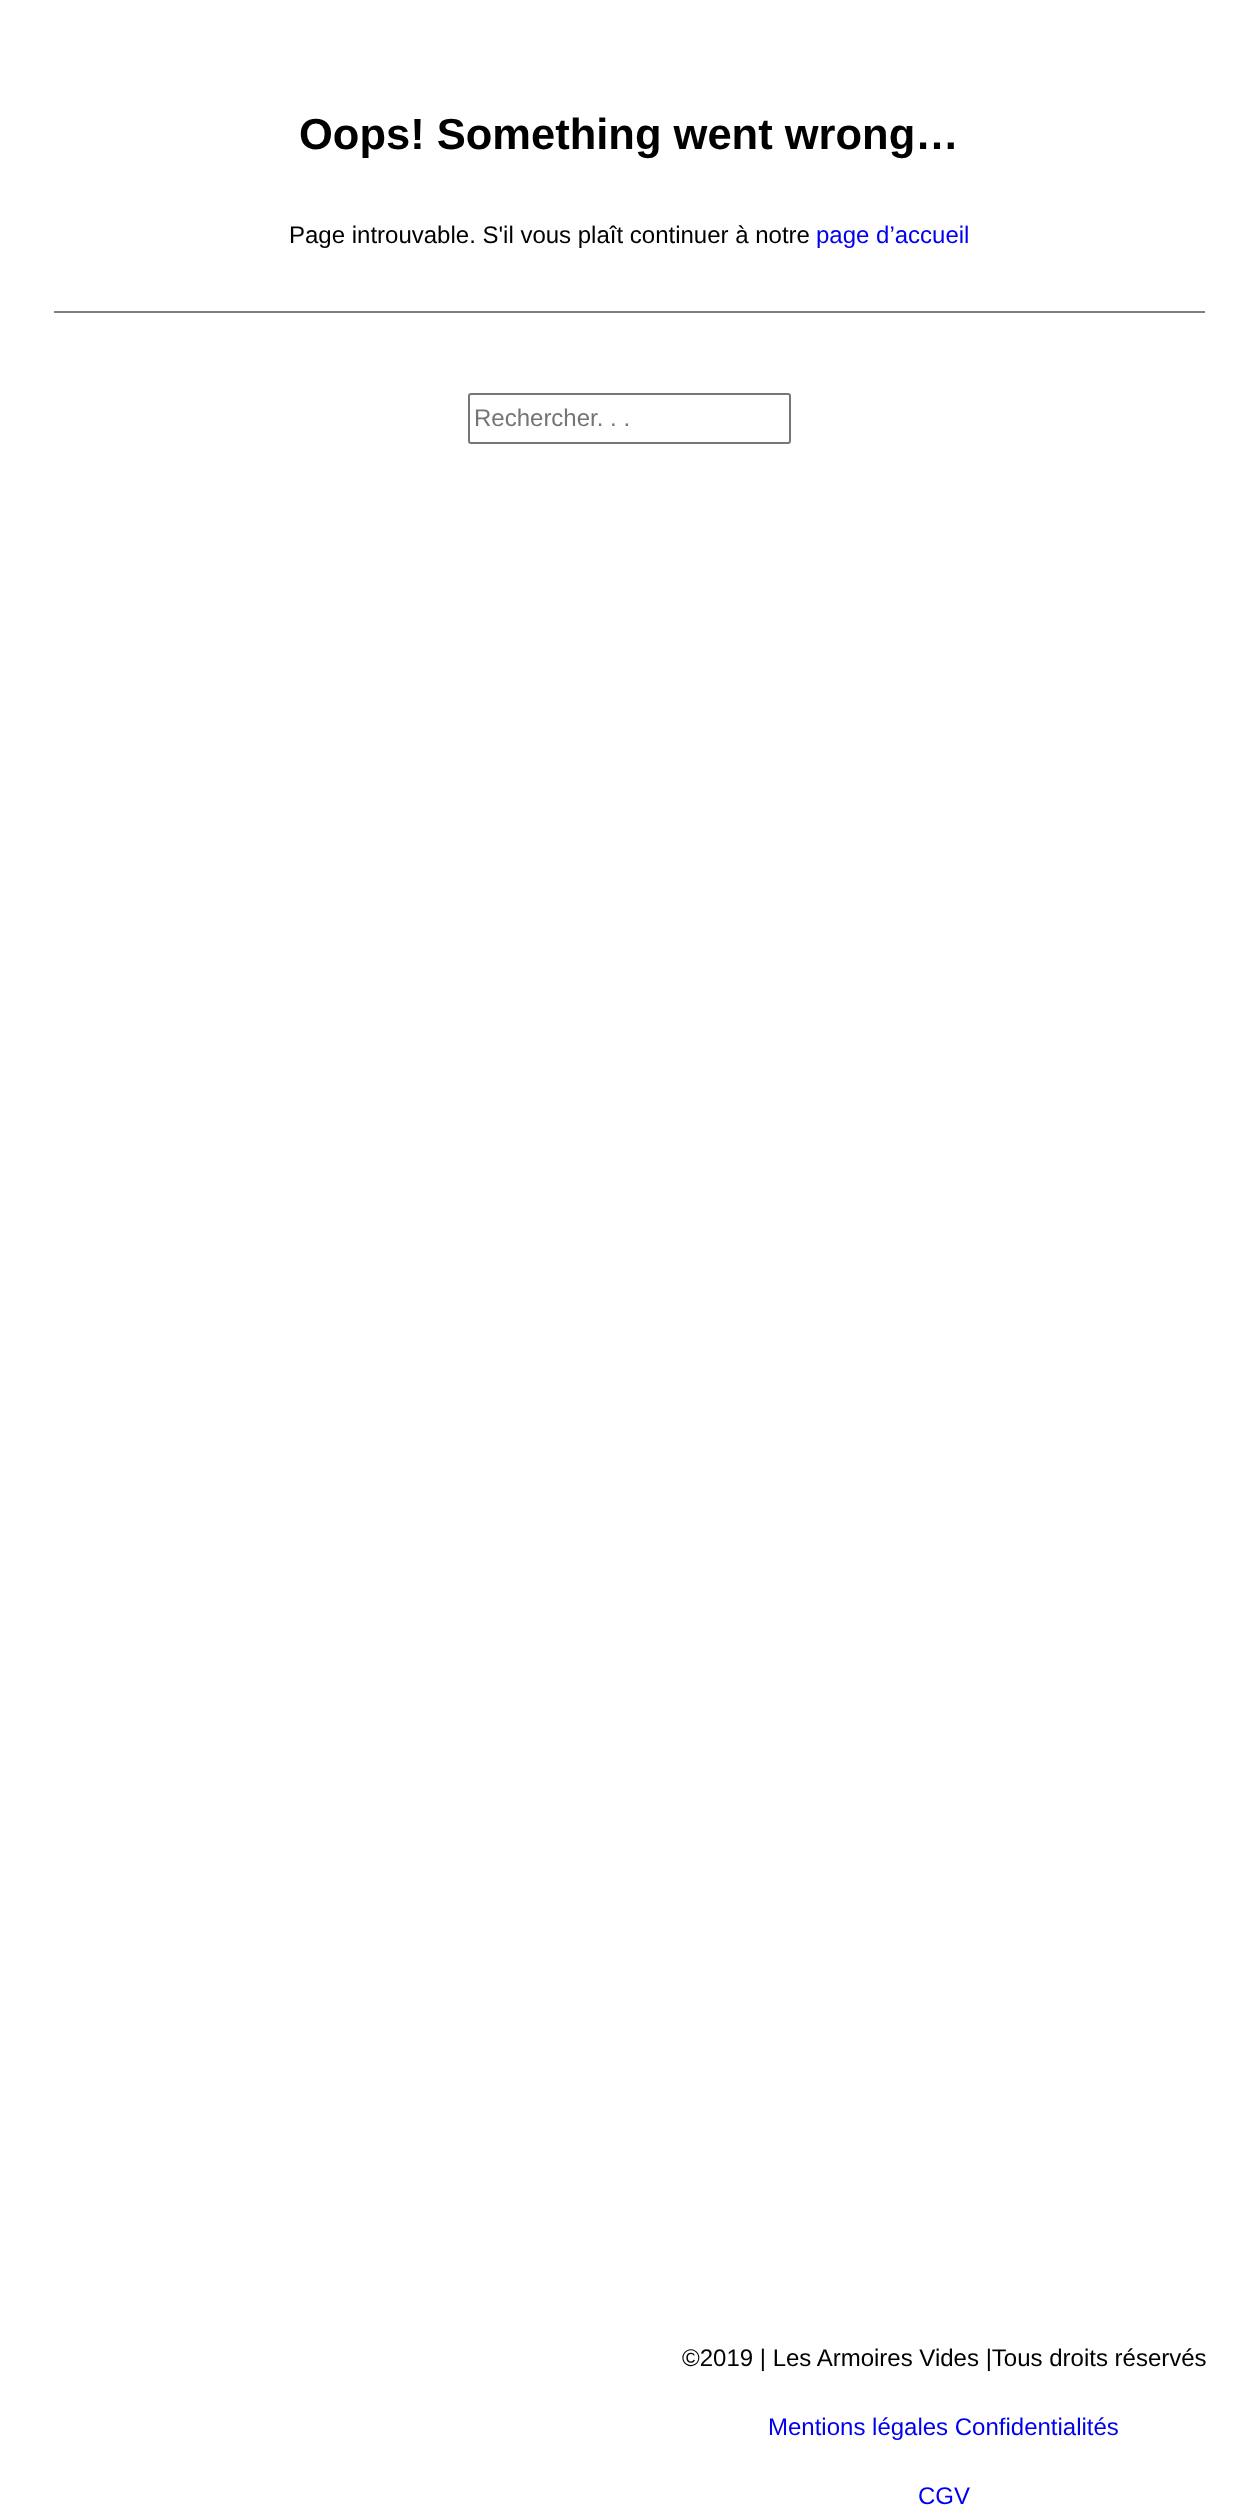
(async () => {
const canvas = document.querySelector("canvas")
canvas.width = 1258
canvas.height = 2517
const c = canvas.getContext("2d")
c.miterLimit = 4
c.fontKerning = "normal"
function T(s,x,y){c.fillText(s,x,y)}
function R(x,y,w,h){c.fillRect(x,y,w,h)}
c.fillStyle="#fff"
R(0,0,1258,2517)
c.font="bold 43.5px Liberation Sans"
c.fillStyle="#000"
T("Oops! Something went wrong…",299,149)
c.font="24px Liberation Sans"
T("Page introuvable. S'il vous plaît continuer à notre",289,243)
c.fillStyle="#00e"
T("page d’accueil",816,243)
c.fillStyle="#808080"
R(54,311,1151,2)
c.beginPath()
c.roundRect(469,394,321,49,2)
c.strokeStyle="#767676"
c.lineWidth=2
c.stroke()
c.fillStyle="#757575"
T("Rechercher. . .",474,426)
c.fillStyle="#000"
T("©2019 | Les Armoires Vides |Tous droits réservés",682,2366)
c.fillStyle="#00e"
T("Mentions légales Confidentialités",768,2435)
T("CGV",918,2504)
})()
